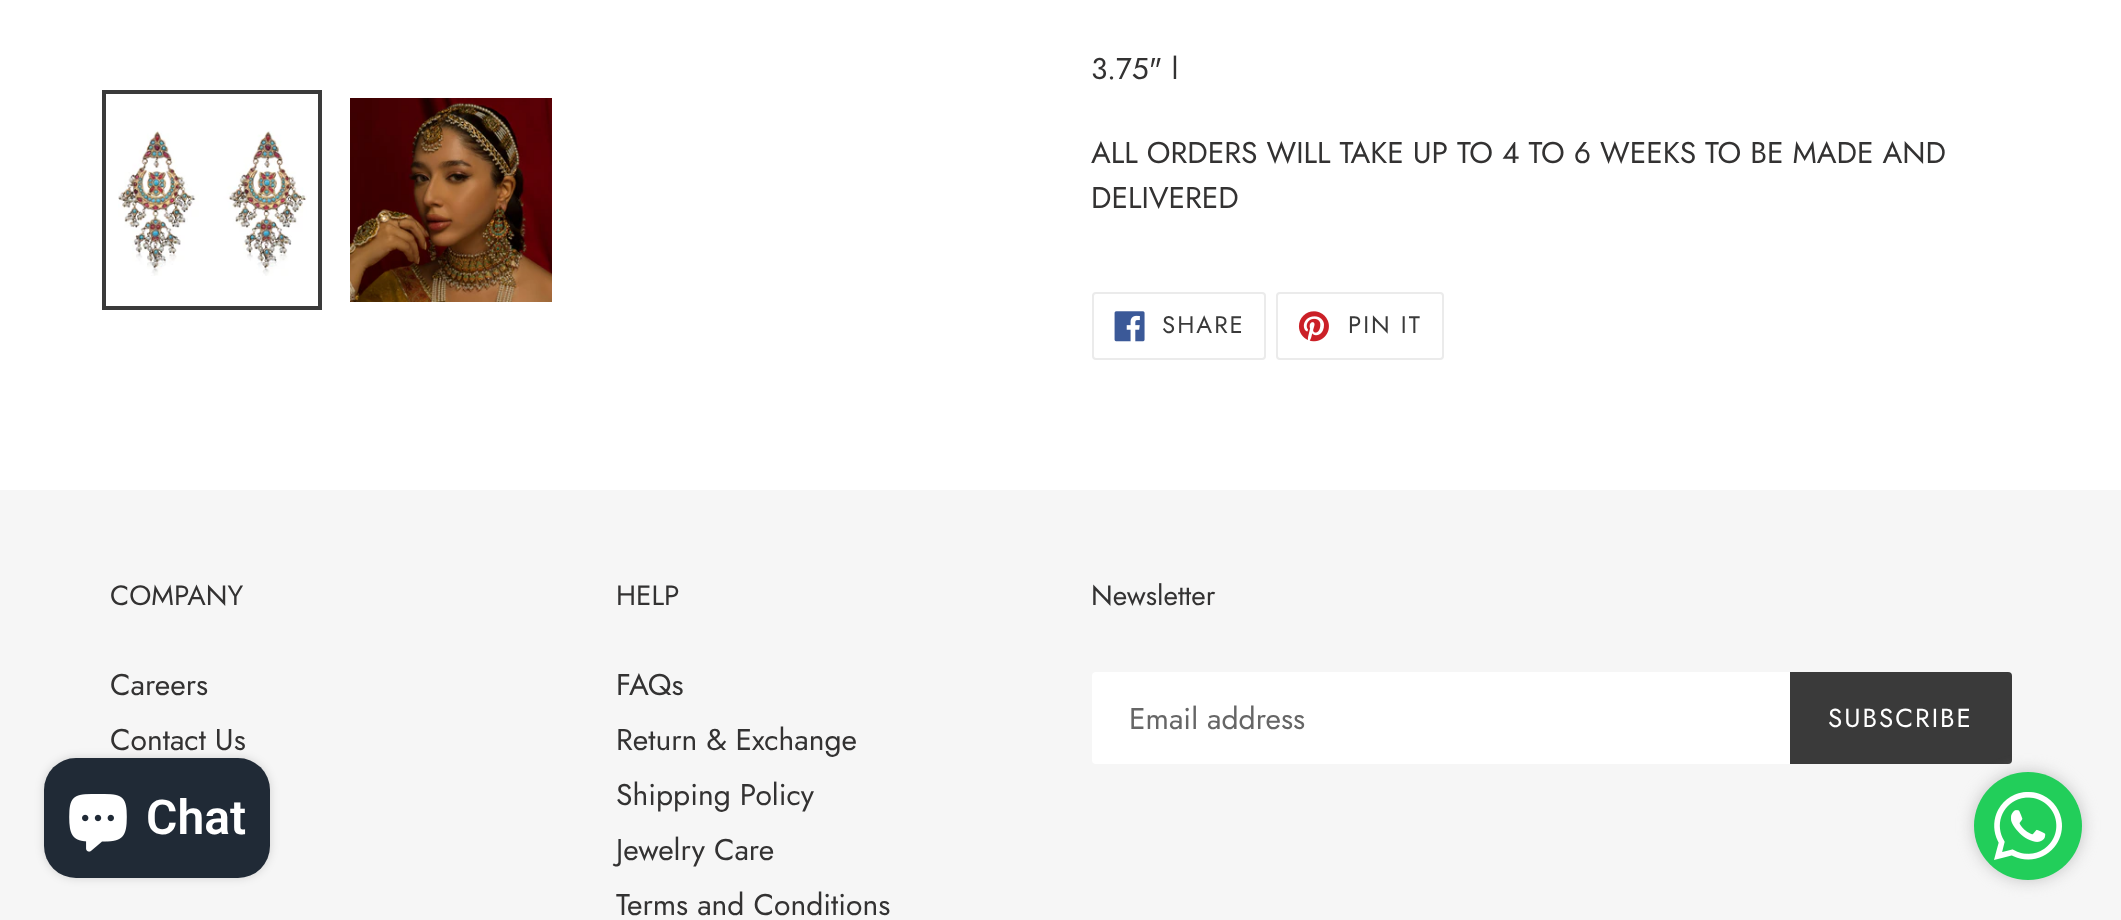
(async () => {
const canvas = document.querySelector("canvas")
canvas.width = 2121
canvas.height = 920
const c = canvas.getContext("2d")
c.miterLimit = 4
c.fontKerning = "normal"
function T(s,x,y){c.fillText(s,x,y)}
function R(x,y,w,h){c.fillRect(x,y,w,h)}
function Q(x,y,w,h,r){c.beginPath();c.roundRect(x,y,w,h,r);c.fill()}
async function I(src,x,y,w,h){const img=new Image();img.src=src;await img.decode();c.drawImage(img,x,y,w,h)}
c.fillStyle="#fff"
R(0,0,2121,920)
c.strokeStyle="#3a3a3a"
c.lineWidth=4
c.strokeRect(104,92,216,216)
await I("1.png",118,130,189,146)
await I("2.png",350,98,202,204)
c.font="30px Jost"
c.fillStyle="#333232"
T("3.75\" l",1091,79)
T("ALL ORDERS WILL TAKE UP TO 4 TO 6 WEEKS TO BE MADE AND",1091,163)
T("DELIVERED",1091,208)
c.beginPath()
c.roundRect(1093,293,172,66,3)
c.strokeStyle="#ebebeb"
c.lineWidth=2
c.stroke()
await I("3.png",1114,311,31,31)
c.letterSpacing="2px"
c.font="24px Jost"
c.fillStyle="#3a3a3a"
T("SHARE",1162,333)
c.beginPath()
c.roundRect(1277,293,166,66,3)
c.stroke()
await I("4.png",1298,311,31,31)
T("PIN IT",1348,333)
c.fillStyle="#f6f6f6"
R(0,490,2121,430)
c.letterSpacing="0px"
c.font="28px Jost"
c.fillStyle="#333232"
T("COMPANY",110,605)
c.font="30px Jost"
T("Careers",110,695)
T("Contact Us",110,750)
c.font="28px Jost"
T("HELP",616,605)
c.font="30px Jost"
T("FAQs",616,695)
T("Return & Exchange",616,750)
T("Shipping Policy",616,805)
T("Jewelry Care",616,860)
T("Terms and Conditions",616,915)
c.font="28px Jost"
T("Newsletter",1091,605)
c.fillStyle="#fff"
c.beginPath()
c.roundRect(1092,672,698,92,[4,0,0,4])
c.fill()
c.font="30px Jost"
c.fillStyle="#666"
T("Email address",1129,729)
c.fillStyle="#3a3a3a"
c.beginPath()
c.roundRect(1790,672,222,92,[0,4,4,0])
c.fill()
c.letterSpacing="2px"
c.font="26px Jost"
c.fillStyle="#fff"
T("SUBSCRIBE",1828,727)
c.fillStyle="#c2c2c2"
c.filter="blur(8px)"
c.beginPath()
c.roundRect(1974,772,108,108,54)
c.fill()
c.filter="none"
c.fillStyle="#22ce5a"
c.beginPath()
c.arc(2028,826,54,0,7)
c.fill()
await I("5.png",1994,792,68,68)
c.fillStyle="#00000026"
c.filter="blur(5px)"
c.beginPath()
c.roundRect(44,758,226,120,32)
c.fill()
c.filter="none"
c.fillStyle="#202a36"
Q(44,758,226,120,32)
await I("6.png",69,794,58,58)
c.letterSpacing="0px"
c.font="600 48px Roboto"
c.fillStyle="#fff"
T("Chat",146,834)
})()
